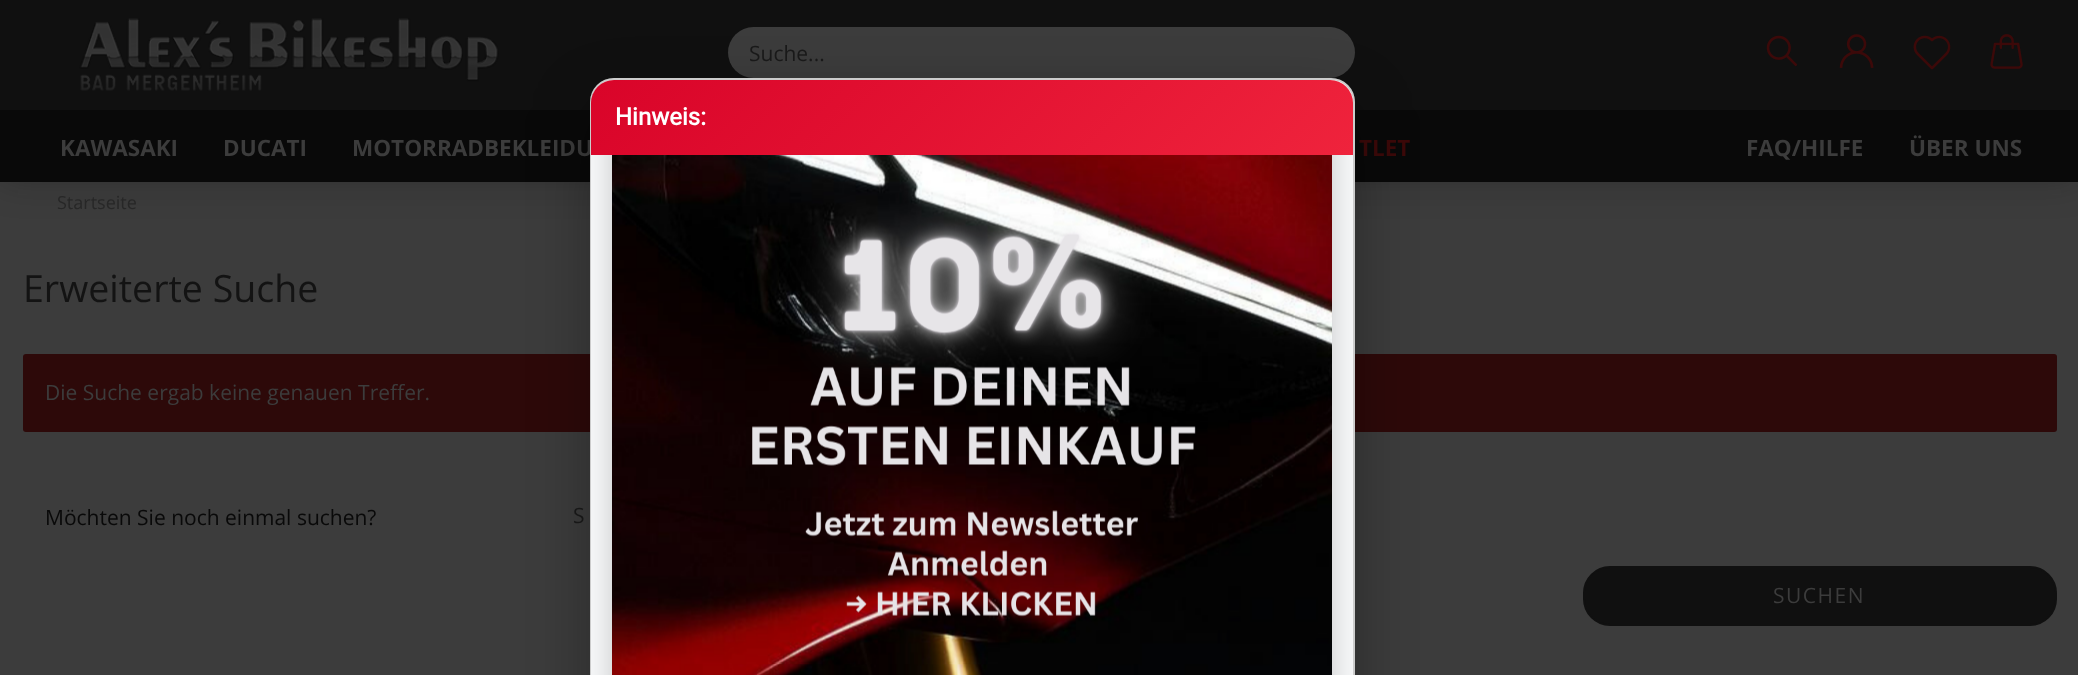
(async () => {
const canvas = document.querySelector("canvas")
canvas.width = 2078
canvas.height = 675
const c = canvas.getContext("2d")
c.miterLimit = 4
c.fontKerning = "normal"
function T(s,x,y){c.fillText(s,x,y)}
function R(x,y,w,h){c.fillRect(x,y,w,h)}
function Q(x,y,w,h,r){c.beginPath();c.roundRect(x,y,w,h,r);c.fill()}
async function I(src,x,y,w,h){const img=new Image();img.src=src;await img.decode();c.drawImage(img,x,y,w,h)}
let gradient
c.fillStyle="#3c3c3c"
R(0,0,2078,675)
c.fillStyle="#0909094d"
c.filter="blur(19px)"
c.beginPath()
c.rect(0,0,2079,177)
c.fill()
c.filter="none"
c.fillStyle="#101010"
R(0,0,2078,110)
await I("1.png",79,18,420,73)
c.fillStyle="#3c3c3c"
Q(728,27,624,51,25.5)
c.font="21px Open Sans"
c.fillStyle="#1a1a1a"
T("Suche...",749,61)
c.fillStyle="#3c3c3c"
c.beginPath()
c.roundRect(1280,27,75,51,[0,25.5,25.5,0])
c.fill()
await I("2.png",1766,35,32,32)
await I("3.png",1839,34,35,34)
await I("4.png",1913,35,38,35)
await I("5.png",1990,34,33,35)
c.fillStyle="#090909"
R(0,110,2078,72)
c.font="bold 22.5px Open Sans"
c.fillStyle="#3c3c3c"
T("KAWASAKI",60,156)
T("DUCATI",223,156)
T("MOTORRADBEKLEIDU",352,156)
c.fillStyle="#3c0909"
T("TLET",1359,156)
c.fillStyle="#3c3c3c"
T("FAQ/HILFE",1746,156)
T("ÜBER UNS",1909,156)
c.font="18px Open Sans"
c.fillStyle="#272727"
T("Startseite",57,209)
c.font="37.5px Open Sans"
c.fillStyle="#131313"
T("Erweiterte Suche",23,302)
c.fillStyle="#2d0909"
Q(23,354,2034,78,3)
c.font="21px Open Sans"
c.fillStyle="#3c3c3c"
T("Die Suche ergab keine genauen Treffer.",45,400)
c.fillStyle="#090909"
T("Möchten Sie noch einmal suchen?",45,525)
c.fillStyle="#1a1a1a"
T("S",573,523)
c.fillStyle="#101010"
c.beginPath()
c.roundRect(1584,567,472,58,26)
c.fill()
c.strokeStyle="#101010"
c.lineWidth=2
c.stroke()
c.letterSpacing="1.5px"
c.fillStyle="#3c3c3c"
T("SUCHEN",1773,603)
c.fillStyle="#0000004d"
c.filter="blur(30px)"
c.beginPath()
c.roundRect(590,101,765,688,24)
c.fill()
c.filter="none"
c.fillStyle="#fff"
c.beginPath()
c.roundRect(590,78,765,597,[24,24,0,0])
c.fill()
c.beginPath()
c.roundRect(591,79,763,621,23)
c.strokeStyle="#00000033"
c.stroke()
c.fillStyle="#f8f9fa"
R(591,155,762,520)
gradient = c.createLinearGradient(763,-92,1181,326)
gradient.addColorStop(0,"#d90429")
gradient.addColorStop(1,"#ef233c")
c.fillStyle = gradient
c.beginPath()
c.roundRect(591,80,762,75,[23,23,0,0])
c.fill()
c.save()
c.beginPath()
c.rect(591,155,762,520)
c.clip()
c.fillStyle="#00000033"
c.filter="blur(15px)"
c.beginPath()
c.roundRect(612,72,720,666,18)
c.fill()
c.filter="none"
c.restore()
await I("6.png",612,155,720,520)
c.letterSpacing="0px"
c.font="bold 24px Roboto"
c.fillStyle="#fff"
T("Hinweis:",615,125)
})()
